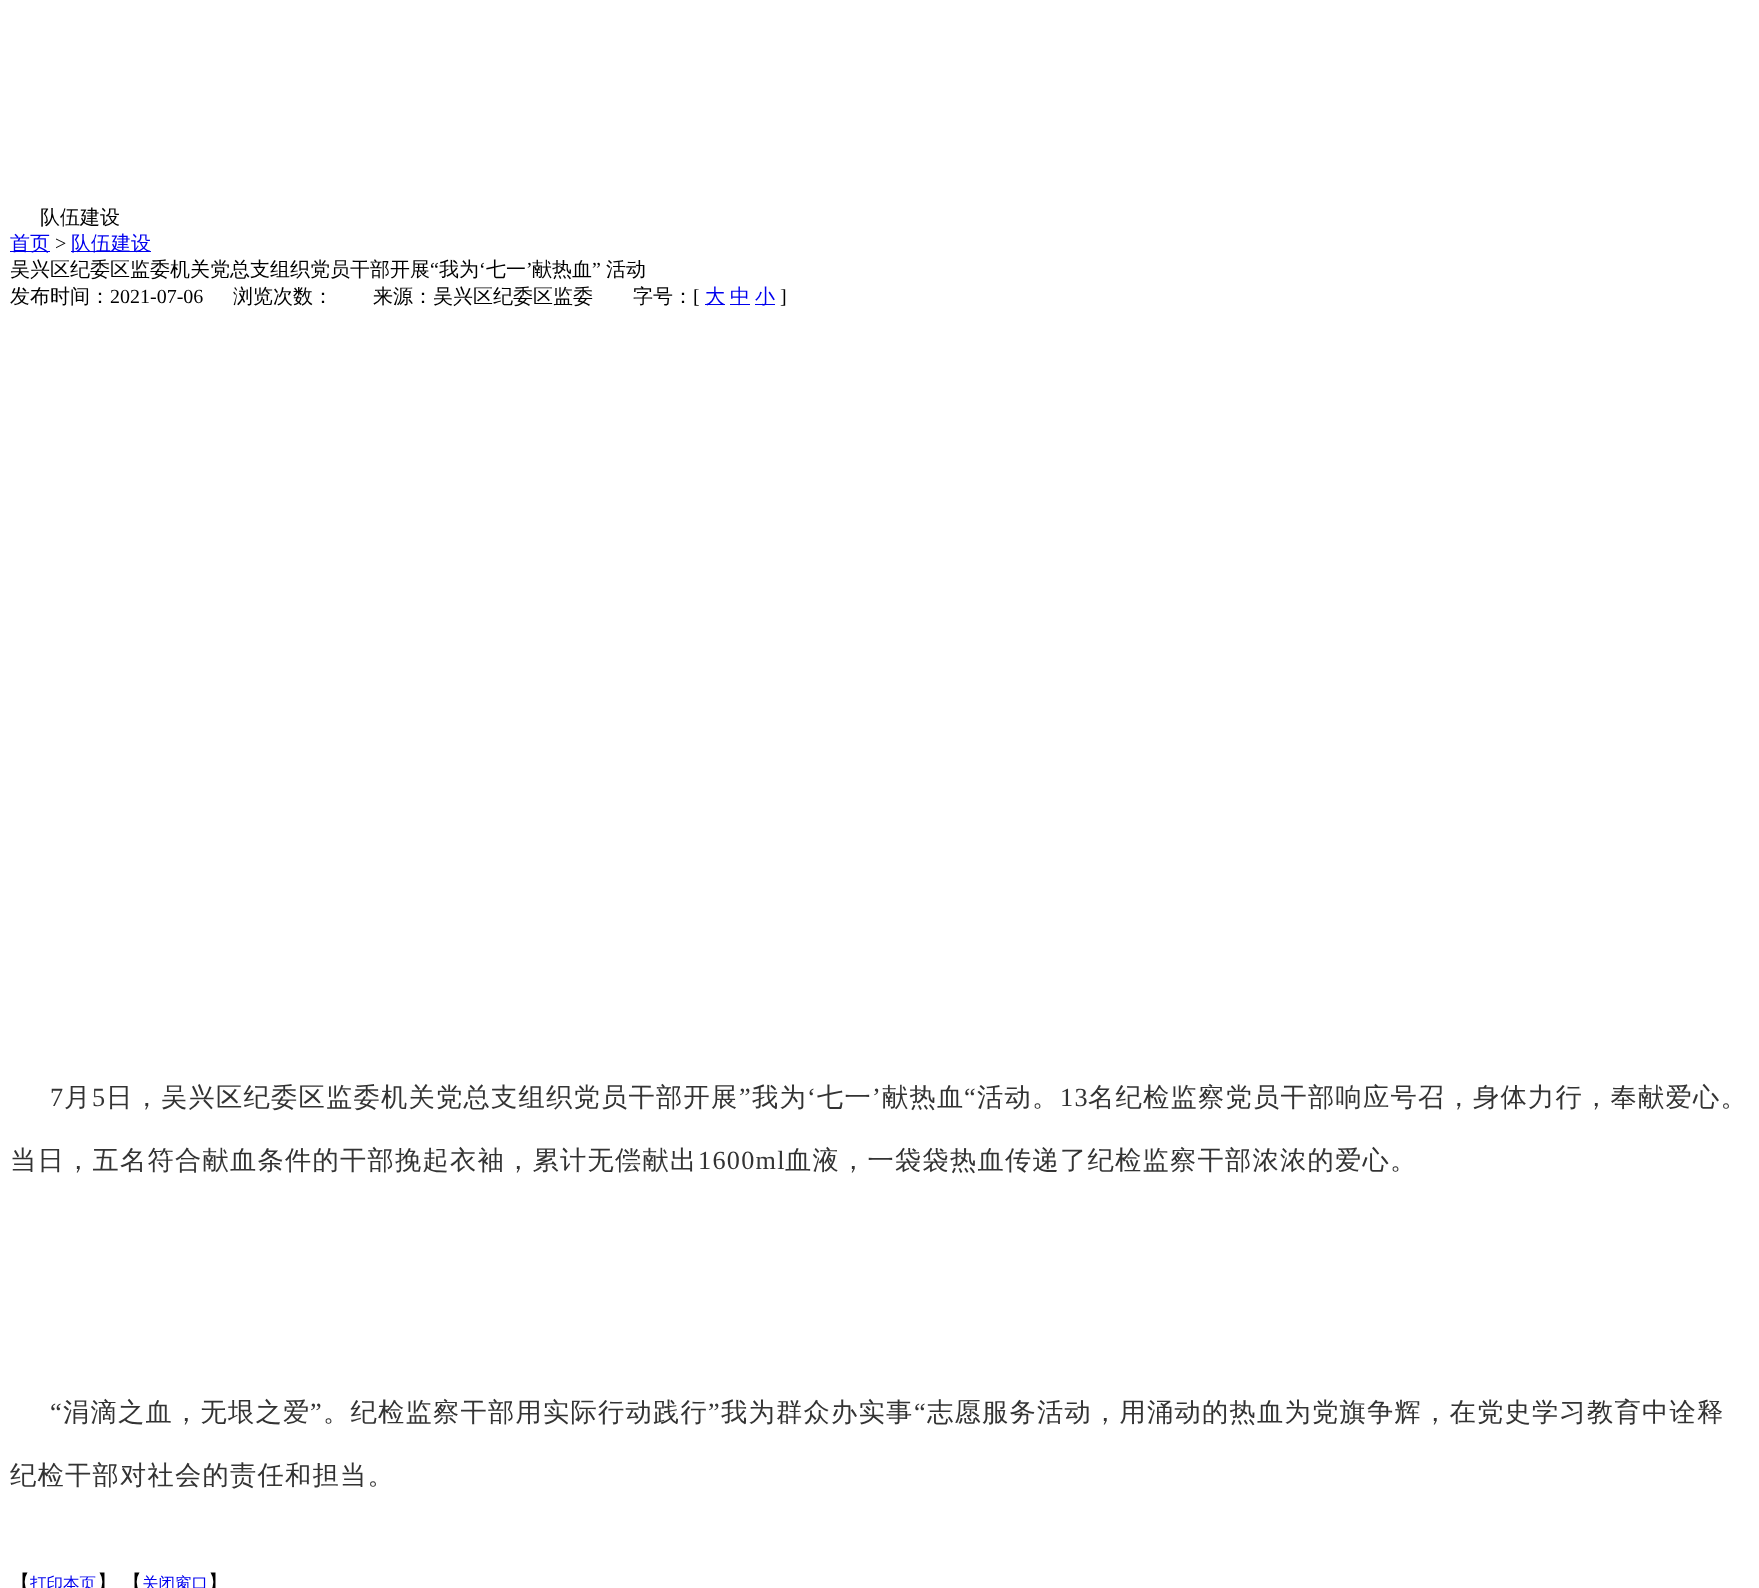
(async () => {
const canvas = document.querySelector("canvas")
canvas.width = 1759
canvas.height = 1588
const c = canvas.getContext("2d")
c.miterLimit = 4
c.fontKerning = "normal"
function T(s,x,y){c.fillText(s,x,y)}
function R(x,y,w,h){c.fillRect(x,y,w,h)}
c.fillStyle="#fff"
R(0,0,1759,1588)
c.font="500 20px WenQuanYi Zen Hei"
c.fillStyle="#000"
T("队伍建设",40,224)
c.fillStyle="#00e"
R(10,251,40,1)
T("首页",10,250)
c.font="20px Liberation Serif"
c.fillStyle="#000"
T(">",55,250)
c.fillStyle="#00e"
R(71,251,80,1)
c.font="500 20px WenQuanYi Zen Hei"
T("队伍建设",71,250)
c.fillStyle="#000"
T("吴兴区纪委区监委机关党总支组织党员干部开展",10,276)
c.font="20px Liberation Serif"
T("“",430,276)
c.font="500 20px WenQuanYi Zen Hei"
T("我为",439,276)
c.font="20px Liberation Serif"
T("‘",479,276)
c.font="500 20px WenQuanYi Zen Hei"
T("七一",486,276)
c.font="20px Liberation Serif"
T("’",526,276)
c.font="500 20px WenQuanYi Zen Hei"
T("献热血",532,276)
c.font="20px Liberation Serif"
T("”",592,276)
c.font="500 20px WenQuanYi Zen Hei"
T("活动",606,276)
T("发布时间：",10,303)
c.font="20px Liberation Serif"
T("2021-07-06",110,303)
c.font="500 20px WenQuanYi Zen Hei"
T("浏览次数：",233,303)
T("来源：吴兴区纪委区监委",373,303)
T("字号：",633,303)
c.font="20px Liberation Serif"
T("[",693,303)
c.fillStyle="#00e"
R(705,304,20,1)
c.font="500 20px WenQuanYi Zen Hei"
T("大",705,303)
R(730,304,20,1)
T("中",730,303)
R(755,304,20,1)
T("小",755,303)
c.font="20px Liberation Serif"
c.fillStyle="#000"
T("]",780,303)
c.letterSpacing="1.25px"
c.font="26.25px Liberation Serif"
c.fillStyle="#333"
T("7",50,1106)
c.font="500 26.25px WenQuanYi Zen Hei"
T("月",64,1106)
c.font="26.25px Liberation Serif"
T("5",92,1106)
c.font="500 26.25px WenQuanYi Zen Hei"
T("日，吴兴区纪委区监委机关党总支组织党员干部开展",106,1106)
c.font="26.25px Liberation Serif"
T("”",739,1106)
c.font="500 26.25px WenQuanYi Zen Hei"
T("我为",752,1106)
c.font="26.25px Liberation Serif"
T("‘",807,1106)
c.font="500 26.25px WenQuanYi Zen Hei"
T("七一",817,1106)
c.font="26.25px Liberation Serif"
T("’",872,1106)
c.font="500 26.25px WenQuanYi Zen Hei"
T("献热血",882,1106)
c.font="26.25px Liberation Serif"
T("“",964,1106)
c.font="500 26.25px WenQuanYi Zen Hei"
T("活动。",977,1106)
c.font="26.25px Liberation Serif"
T("13",1060,1106)
c.font="500 26.25px WenQuanYi Zen Hei"
T("名纪检监察党员干部响应号召，身体力行，奉献爱心。",1088,1106)
T("当日，五名符合献血条件的干部挽起衣袖，累计无偿献出",10,1169)
c.font="26.25px Liberation Serif"
T("1600ml",698,1169)
c.font="500 26.25px WenQuanYi Zen Hei"
T("血液，一袋袋热血传递了纪检监察干部浓浓的爱心。",785,1169)
c.font="26.25px Liberation Serif"
T("“",50,1421)
c.font="500 26.25px WenQuanYi Zen Hei"
T("涓滴之血，无垠之爱",63,1421)
c.font="26.25px Liberation Serif"
T("”",310,1421)
c.font="500 26.25px WenQuanYi Zen Hei"
T("。纪检监察干部用实际行动践行",323,1421)
c.font="26.25px Liberation Serif"
T("”",708,1421)
c.font="500 26.25px WenQuanYi Zen Hei"
T("我为群众办实事",721,1421)
c.font="26.25px Liberation Serif"
T("“",914,1421)
c.font="500 26.25px WenQuanYi Zen Hei"
T("志愿服务活动，用涌动的热血为党旗争辉，在党史学习教育中诠释",927,1421)
T("纪检干部对社会的责任和担当。",10,1484)
c.letterSpacing="0px"
c.font="500 20px WenQuanYi Zen Hei"
c.fillStyle="#000"
T("【",10,1589)
c.font="500 16.5px WenQuanYi Zen Hei"
c.fillStyle="#00e"
T("打印本页",30,1589)
c.wordSpacing="-1px"
c.font="500 20px WenQuanYi Zen Hei"
c.fillStyle="#000"
T("】 【",97,1589)
c.wordSpacing="0px"
c.font="500 16.5px WenQuanYi Zen Hei"
c.fillStyle="#00e"
T("关闭窗口",142,1589)
c.font="500 20px WenQuanYi Zen Hei"
c.fillStyle="#000"
T("】",208,1589)
})()
